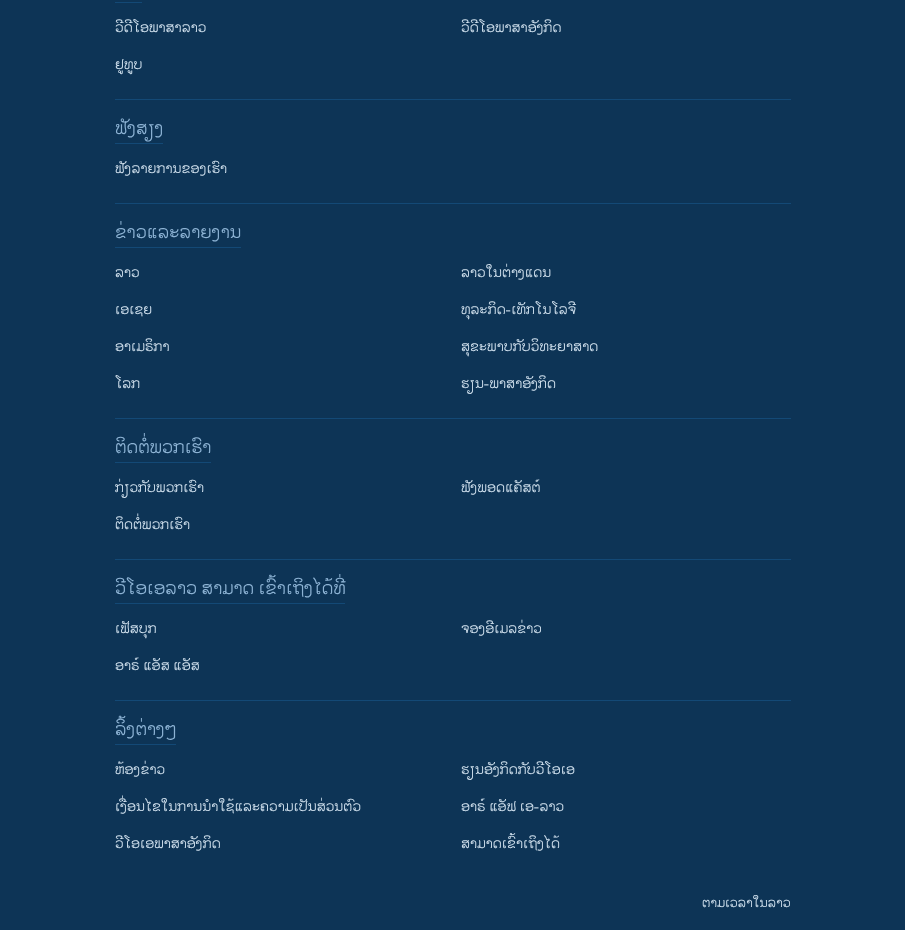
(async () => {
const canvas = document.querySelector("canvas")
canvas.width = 905
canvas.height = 930
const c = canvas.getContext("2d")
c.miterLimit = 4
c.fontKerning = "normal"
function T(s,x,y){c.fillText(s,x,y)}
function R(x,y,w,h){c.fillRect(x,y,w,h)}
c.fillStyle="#0d3456"
R(0,0,905,930)
c.fillStyle="#134976"
R(115,2,27,1)
c.font="14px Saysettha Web"
c.fillStyle="#d1e1ee"
T("ວີດີໂອພາສາລາວ",115,32)
T("ວີດີໂອພາສາອັງກິດ",461,32)
T("ຢູທູບ",115,69)
c.fillStyle="#134976"
R(115,99,676,1)
R(115,143,48,1)
c.font="18px Saysettha Web"
c.fillStyle="#8db3d4"
T("ຟັງສຽງ",115,134)
c.font="14px Saysettha Web"
c.fillStyle="#d1e1ee"
T("ຟັງລາຍການຂອງເຮົາ",115,173)
c.fillStyle="#134976"
R(115,203,676,1)
R(115,247,126,1)
c.font="18px Saysettha Web"
c.fillStyle="#8db3d4"
T("ຂ່າວແລະລາຍງານ",115,238)
c.font="14px Saysettha Web"
c.fillStyle="#d1e1ee"
T("ລາວ",115,277)
T("ລາວໃນຕ່າງແດນ",461,277)
T("ເອເຊຍ",115,314)
T("ທຸລະກິດ-ເທັກໂນໂລຈີ",461,314)
T("ອາເມຣິກາ",115,351)
T("ສຸຂະພາບກັບວິທະຍາສາດ",461,351)
T("ໂລກ",115,388)
T("ຮຽນ-ພາສາອັງກິດ",461,388)
c.fillStyle="#134976"
R(115,418,676,1)
R(115,462,96,1)
c.font="18px Saysettha Web"
c.fillStyle="#8db3d4"
T("ຕິດຕໍ່ພວກເຮົາ",115,453)
c.font="14px Saysettha Web"
c.fillStyle="#d1e1ee"
T("ກ່ຽວກັບພວກເຮົາ",115,492)
T("ຟັງພອດແຄັສຕ໌",461,492)
T("ຕິດຕໍ່ພວກເຮົາ",115,529)
c.fillStyle="#134976"
R(115,559,676,1)
R(115,603,230,1)
c.font="18px Saysettha Web"
c.fillStyle="#8db3d4"
T("ວີໂອເອລາວ ສາມາດ ເຂົ້າເຖິງໄດ້ທີ່",115,594)
c.font="14px Saysettha Web"
c.fillStyle="#d1e1ee"
T("ເຟັສບຸກ",115,633)
T("ຈອງອີເມລຂ່າວ",461,633)
T("ອາຣ໌ ແອັສ ແອັສ",115,670)
c.fillStyle="#134976"
R(115,700,676,1)
R(115,744,61,1)
c.font="18px Saysettha Web"
c.fillStyle="#8db3d4"
T("ລິ້ງຕ່າງໆ",115,735)
c.font="14px Saysettha Web"
c.fillStyle="#d1e1ee"
T("ຫ້ອງຂ່າວ",115,774)
T("ຮຽນອັງກິດກັບວີໂອເອ",461,774)
T("ເງື່ອນໄຂໃນການນຳໃຊ້ແລະຄວາມເປັນສ່ວນຕົວ",115,811)
T("ອາຣ໌ ແອັຟ ເອ-ລາວ",461,811)
T("ວີໂອເອພາສາອັງກິດ",115,848)
T("ສາມາດເຂົ້າເຖິງໄດ້",461,848)
c.font="13px Saysettha Web"
T("ຕາມເວລາໃນລາວ",702,907)
})()
